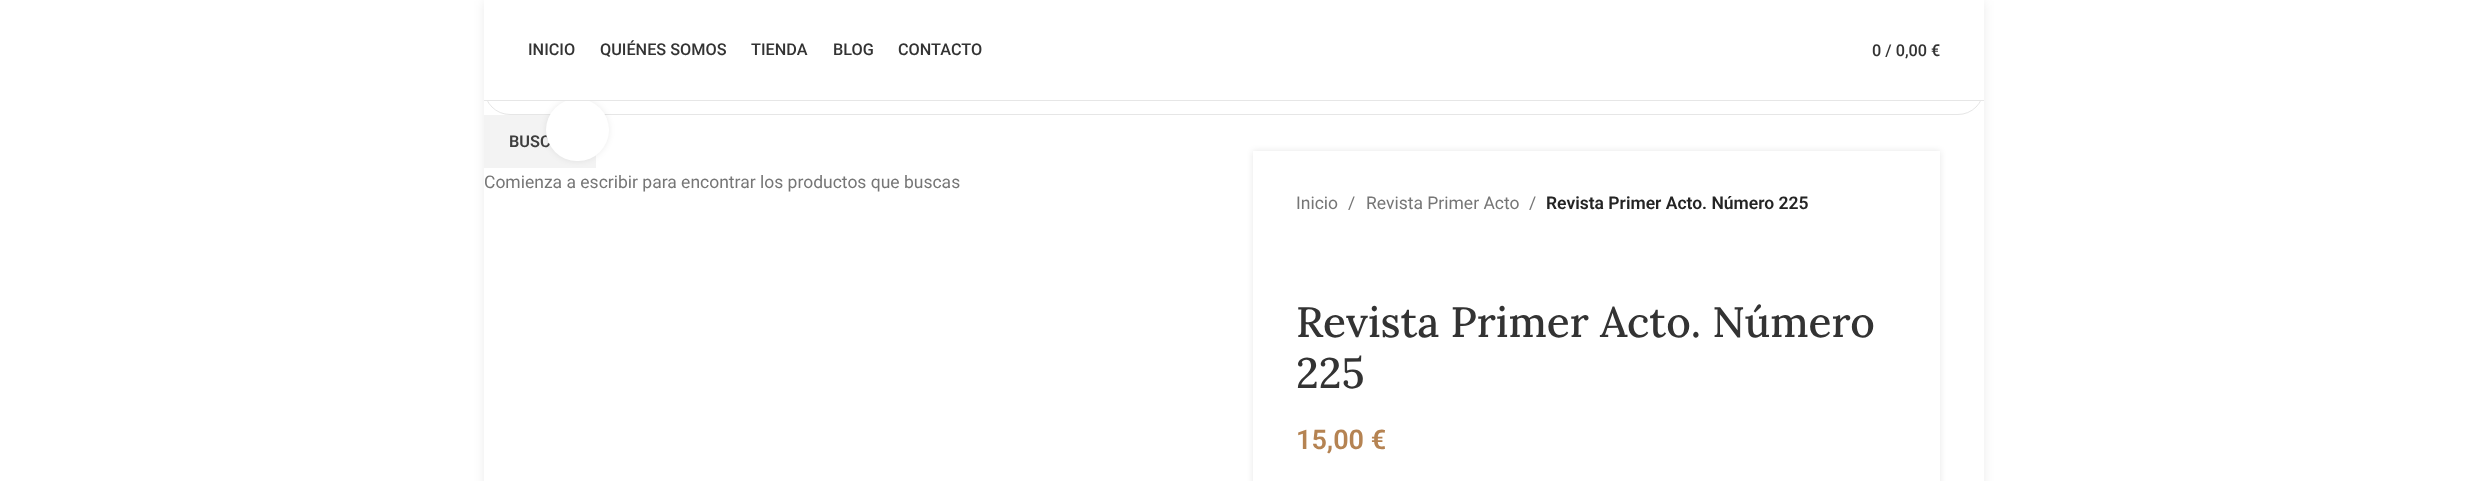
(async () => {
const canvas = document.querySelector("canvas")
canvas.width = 2467
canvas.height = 481
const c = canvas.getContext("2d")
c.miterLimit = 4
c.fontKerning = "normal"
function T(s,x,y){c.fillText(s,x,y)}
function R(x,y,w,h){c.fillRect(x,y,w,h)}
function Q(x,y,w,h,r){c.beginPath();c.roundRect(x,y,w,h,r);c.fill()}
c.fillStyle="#fff"
R(0,0,2467,481)
c.fillStyle="#00000014"
c.filter="blur(5.5px)"
c.beginPath()
c.rect(484,1,1500,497)
c.fill()
c.filter="none"
c.fillStyle="#fff"
R(484,101,1500,380)
c.beginPath()
c.roundRect(484.5,63.5,1499,51,25.5)
c.strokeStyle="#e6e6e6"
c.stroke()
c.fillStyle="#f3f3f3"
R(484,115,112,53)
c.fillStyle="#00000014"
c.filter="blur(3px)"
c.beginPath()
c.roundRect(546,99,63,62,31)
c.fill()
c.filter="none"
c.font="600 16.25px Roboto"
c.fillStyle="#3e3e3e"
T("BUSC",509,147)
c.fillStyle="#fff"
Q(546,99,63,62,31)
R(484,0,1500,100)
c.fillStyle="#e6e6e6"
R(484,100,1500,1)
c.font="500 16.25px Roboto"
c.fillStyle="#333"
T("INICIO",528,55)
T("QUIÉNES SOMOS",600,55)
T("TIENDA",751,55)
T("BLOG",833,55)
T("CONTACTO",898,55)
T("0 / 0,00 €",1872,56)
c.fillStyle="#0000001a"
c.filter="blur(3px)"
c.beginPath()
c.rect(1253,151,687,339)
c.fill()
c.filter="none"
c.fillStyle="#fff"
R(1253,151,687,330)
c.font="17.5px Roboto"
c.fillStyle="#767676"
T("Inicio",1296,209)
T("/",1348,209)
T("Revista Primer Acto",1366,209)
T("/",1529,209)
c.font="600 17.5px Roboto"
c.fillStyle="#242424"
T("Revista Primer Acto. Número 225",1546,209)
c.font="500 42.5px Lora"
c.fillStyle="#333"
T("Revista Primer Acto. Número",1296,337)
T("225",1296,388)
c.font="600 27px Roboto"
c.fillStyle="#b58352"
T("15,00 €",1296,449)
c.font="17.5px Roboto"
c.fillStyle="#767676"
T("Comienza a escribir para encontrar los productos que buscas",484,188)
})()
